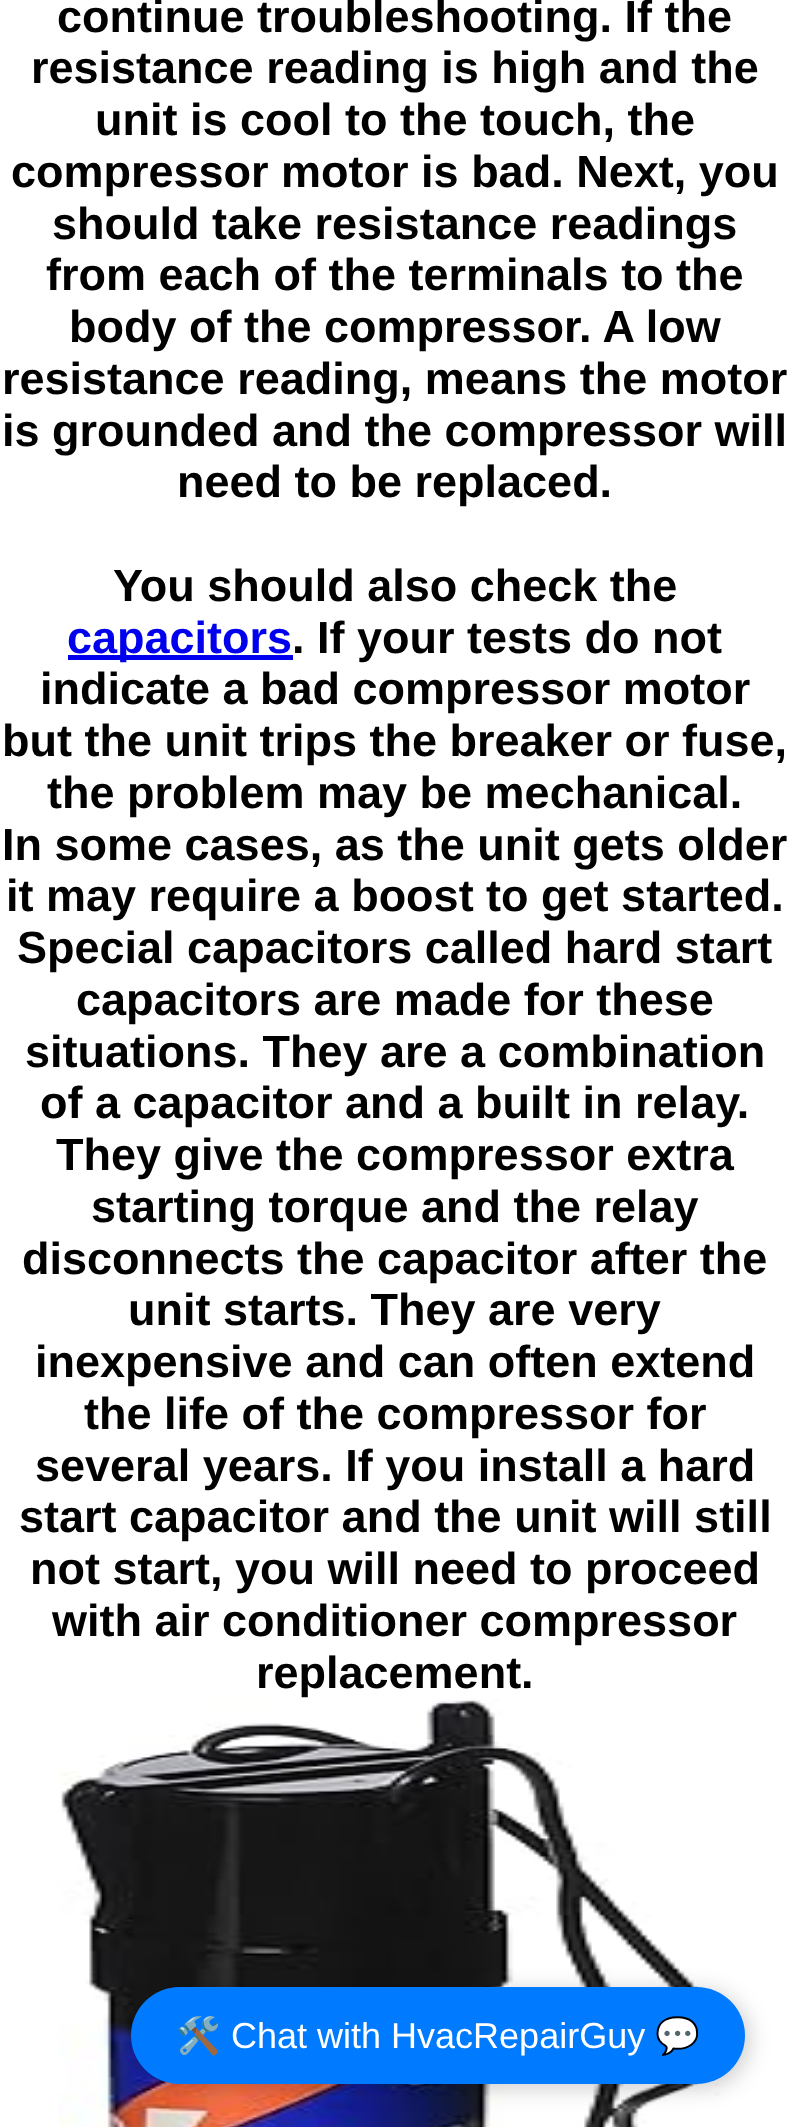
(async () => {
const canvas = document.querySelector("canvas")
canvas.width = 789
canvas.height = 2127
const c = canvas.getContext("2d")
c.miterLimit = 4
c.fontKerning = "normal"
function T(s,x,y){c.fillText(s,x,y)}
function R(x,y,w,h){c.fillRect(x,y,w,h)}
function Q(x,y,w,h,r){c.beginPath();c.roundRect(x,y,w,h,r);c.fill()}
async function I(src,x,y,w,h){const img=new Image();img.src=src;await img.decode();c.drawImage(img,x,y,w,h)}
c.fillStyle="#fff"
R(0,0,789,2127)
c.font="bold 45px Liberation Sans"
c.fillStyle="#000"
T("continue troubleshooting. If the",57,32)
T("resistance reading is high and the",31,83)
T("unit is cool to the touch, the",95,135)
T("compressor motor is bad. Next, you",11,187)
T("should take resistance readings",52,239)
T("from each of the terminals to the",46,290)
T("body of the compressor. A low",69,342)
T("resistance reading, means the motor",2,394)
T("is grounded and the compressor will",2,446)
T("need to be replaced.",177,497)
T("You should also check the",113,601)
c.fillStyle="#00e"
R(68,655,225,5)
T("capacitors",67,653)
c.fillStyle="#000"
T(". If your tests do not",292,653)
T("indicate a bad compressor motor",40,704)
T("but the unit trips the breaker or fuse,",2,756)
T("the problem may be mechanical.",47,808)
T("In some cases, as the unit gets older",2,860)
T("it may require a boost to get started.",6,911)
T("Special capacitors called hard start",17,963)
T("capacitors are made for these",76,1015)
T("situations. They are a combination",25,1067)
T("of a capacitor and a built in relay.",40,1118)
T("They give the compressor extra",56,1170)
T("starting torque and the relay",91,1222)
T("disconnects the capacitor after the",22,1274)
T("unit starts. They are very",128,1325)
T("inexpensive and can often extend",35,1377)
T("the life of the compressor for",84,1429)
T("several years. If you install a hard",35,1481)
T("start capacitor and the unit will still",19,1532)
T("not start, you will need to proceed",30,1584)
T("with air conditioner compressor",52,1636)
T("replacement.",256,1688)
await I("1.png",58,1699,676,428)
c.fillStyle="#00000033"
c.filter="blur(11px)"
c.beginPath()
c.roundRect(135,1991,614,97,48.5)
c.fill()
c.filter="none"
c.fillStyle="#007bff"
Q(131,1987,614,97,48.5)
c.font="36px Noto Color Emoji"
c.fillStyle="#fff"
T("🛠️",176,2048)
c.font="36px Liberation Sans"
T("Chat with HvacRepairGuy",231,2048)
c.font="36px Noto Color Emoji"
T("💬",655,2048)
})()
